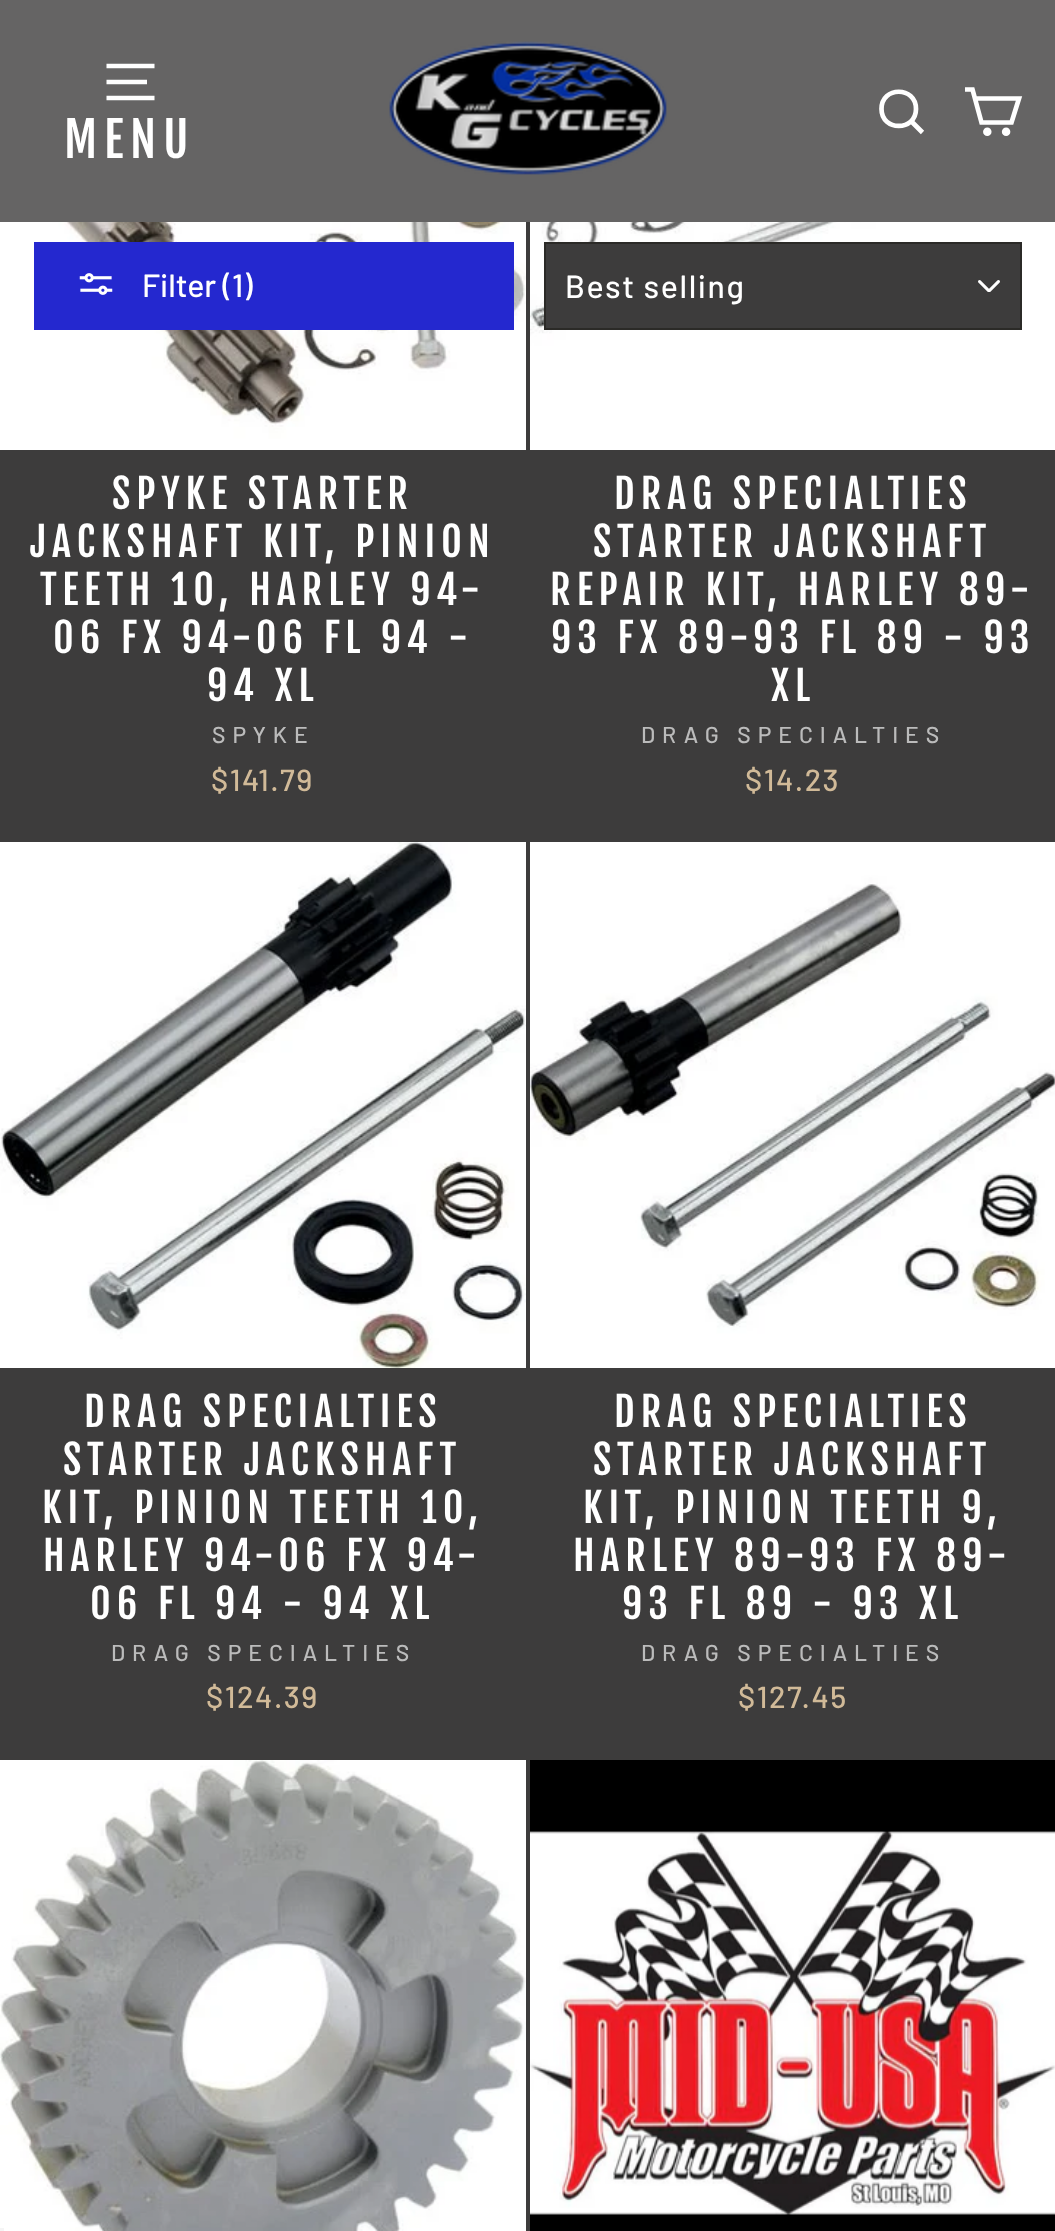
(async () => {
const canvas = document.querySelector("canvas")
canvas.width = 1055
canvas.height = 2231
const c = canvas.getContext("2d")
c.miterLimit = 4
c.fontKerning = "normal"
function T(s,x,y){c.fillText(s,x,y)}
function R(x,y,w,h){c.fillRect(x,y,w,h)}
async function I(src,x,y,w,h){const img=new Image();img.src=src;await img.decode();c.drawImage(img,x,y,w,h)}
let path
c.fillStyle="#3d3c3c"
R(0,0,1055,2231)
c.fillStyle="#656464"
R(0,0,1055,222)
path = new Path2D("M106.5 66h48m-48 16h40.5m-40.5 16h48")
c.strokeStyle="#fff"
c.lineWidth=4.7
c.stroke(path)
c.letterSpacing="7px"
c.font="48px Fjalla One"
c.fillStyle="#fff"
T("MENU",64,158)
await I("1.png",389,41,278,134)
path = new Path2D("M916 109c0 22.5-34.5 22.5-34.5 0c0-23 34.5-23 34.5 0zm6.5 23.5l-11-11")
c.stroke(path)
path = new Path2D("M975 98.5h44l-7.5 24h-30l-9-33h-7.5")
c.stroke(path)
c.beginPath()
c.arc(987.3,131.7,1.9,0,7)
c.fill()
c.stroke()
c.beginPath()
c.arc(1006.1,131.7,1.9,0,7)
c.fill()
c.stroke()
await I("4.png",0,222,526,228)
c.fillStyle="#2428cf"
R(34,242,480,88)
await I("2.png",79,273,34,22)
c.letterSpacing="0px"
c.font="500 32px Barlow"
c.fillStyle="#fff"
T("Filter (1)",142,297)
await I("5.png",530,222,525,228)
c.fillStyle="#3d3c3c"
R(546,244,474,84)
await I("3.png",978,280,22,12)
c.strokeStyle="#2b2a27"
c.lineWidth=2
c.strokeRect(545,243,476,86)
c.letterSpacing="1.6px"
c.fillStyle="#fff"
T("Best selling",565,298)
c.letterSpacing="6px"
c.font="40px Fjalla One"
T("SPYKE STARTER",112,509)
T("JACKSHAFT KIT, PINION",30,557)
T("TEETH 10, HARLEY 94-",40,605)
T("06 FX 94-06 FL 94 -",53,653)
T("94 XL",207,701)
c.letterSpacing="6.9px"
c.font="500 23px Barlow"
c.fillStyle="#bbb"
T("SPYKE",212,743)
c.letterSpacing="1.5px"
c.font="500 30.5px Barlow"
c.fillStyle="#d1ba98"
T("$141.79",211,791)
c.letterSpacing="6px"
c.font="40px Fjalla One"
c.fillStyle="#fff"
T("DRAG SPECIALTIES",614,509)
T("STARTER JACKSHAFT",593,557)
T("REPAIR KIT, HARLEY 89-",550,605)
T("93 FX 89-93 FL 89 - 93",551,653)
T("XL",771,701)
c.letterSpacing="6.9px"
c.font="500 23px Barlow"
c.fillStyle="#bbb"
T("DRAG SPECIALTIES",641,743)
c.letterSpacing="1.5px"
c.font="500 30.5px Barlow"
c.fillStyle="#d1ba98"
T("$14.23",745,791)
await I("6.png",0,842,526,526)
c.letterSpacing="6px"
c.font="40px Fjalla One"
c.fillStyle="#fff"
T("DRAG SPECIALTIES",84,1427)
T("STARTER JACKSHAFT",63,1475)
T("KIT, PINION TEETH 10,",42,1523)
T("HARLEY 94-06 FX 94-",43,1571)
T("06 FL 94 - 94 XL",90,1619)
c.letterSpacing="6.9px"
c.font="500 23px Barlow"
c.fillStyle="#bbb"
T("DRAG SPECIALTIES",111,1661)
c.letterSpacing="1.5px"
c.font="500 30.5px Barlow"
c.fillStyle="#d1ba98"
T("$124.39",206,1708)
await I("7.png",530,842,525,526)
c.letterSpacing="6px"
c.font="40px Fjalla One"
c.fillStyle="#fff"
T("DRAG SPECIALTIES",614,1427)
T("STARTER JACKSHAFT",593,1475)
T("KIT, PINION TEETH 9,",583,1523)
T("HARLEY 89-93 FX 89-",573,1571)
T("93 FL 89 - 93 XL",622,1619)
c.letterSpacing="6.9px"
c.font="500 23px Barlow"
c.fillStyle="#bbb"
T("DRAG SPECIALTIES",641,1661)
c.letterSpacing="1.5px"
c.font="500 30.5px Barlow"
c.fillStyle="#d1ba98"
T("$127.45",738,1708)
await I("8.png",0,1760,526,471)
c.fillStyle="#000"
R(530,1760,525,471)
await I("9.png",530,1831,525,384)
c.fillStyle="#f5f5f5"
R(0,2228,4,3)
})()
